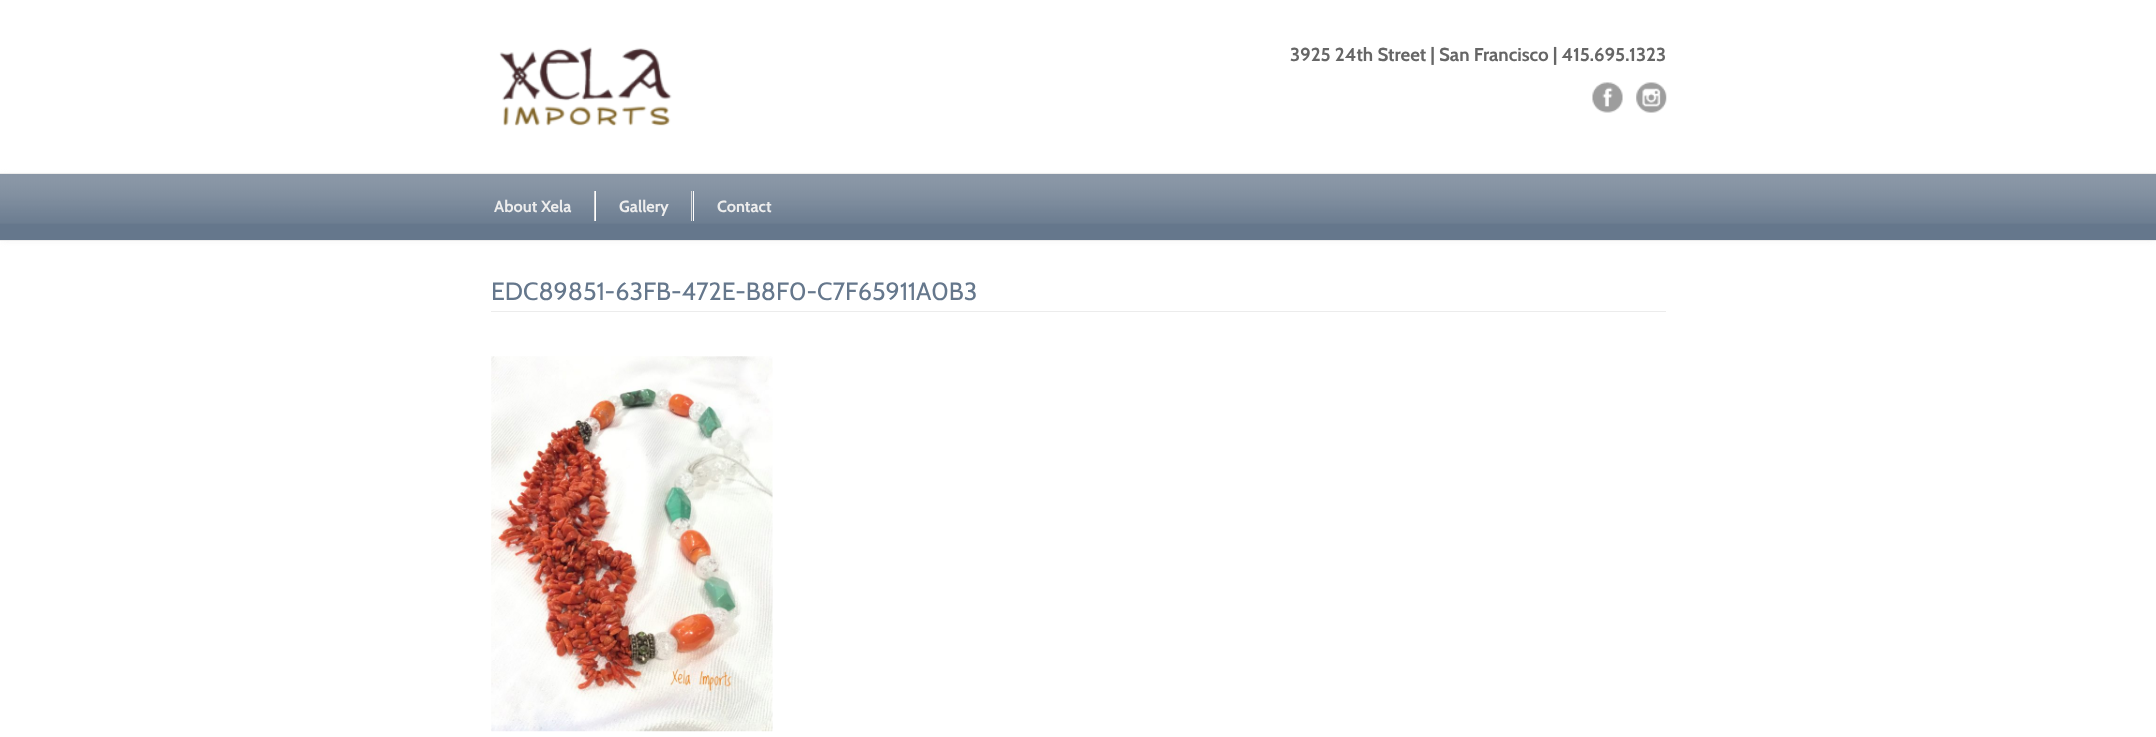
(async () => {
const canvas = document.querySelector("canvas")
canvas.width = 2156
canvas.height = 737
const c = canvas.getContext("2d")
c.miterLimit = 4
c.fontKerning = "normal"
function T(s,x,y){c.fillText(s,x,y)}
function R(x,y,w,h){c.fillRect(x,y,w,h)}
async function I(src,x,y,w,h){const img=new Image();img.src=src;await img.decode();c.drawImage(img,x,y,w,h)}
c.fillStyle="#fff"
R(0,0,2156,737)
await I("1.png",499,47,173,79)
c.font="bold 18.75px Cabin"
c.fillStyle="#666"
T("3925 24th Street | San Francisco | 415.695.1323",1290,61)
await I("2.png",1592,82,31,31)
await I("3.png",1636,82,31,31)
c.fillStyle="#f5f5f5"
c.filter="blur(3px)"
c.beginPath()
c.rect(1,175,2154,66)
c.fill()
c.filter="none"
c.fillStyle="#65778c"
R(0,174,2156,66)
await I("4.png",0,174,2156,50)
c.fillStyle="#ececec"
R(0,173,2156,1)
R(0,240,2156,1)
c.fillStyle="#dbdbdb"
R(594,191,1,30)
c.font="bold 16.25px Cabin"
c.fillStyle="#ededed"
T("About Xela",494,212)
c.fillStyle="#dbdbdb"
R(691,191,1,30)
c.fillStyle="#fff"
R(595,191,1,30)
c.fillStyle="#ededed"
T("Gallery",619,212)
c.fillStyle="#fff"
R(693,191,1,30)
c.fillStyle="#ededed"
T("Contact",717,212)
c.fillStyle="#ececec"
R(491,311,1175,1)
c.font="25px Cabin"
c.fillStyle="#65778c"
T("EDC89851-63FB-472E-B8F0-C7F65911A0B3",491,300)
await I("5.png",491,356,282,376)
})()
